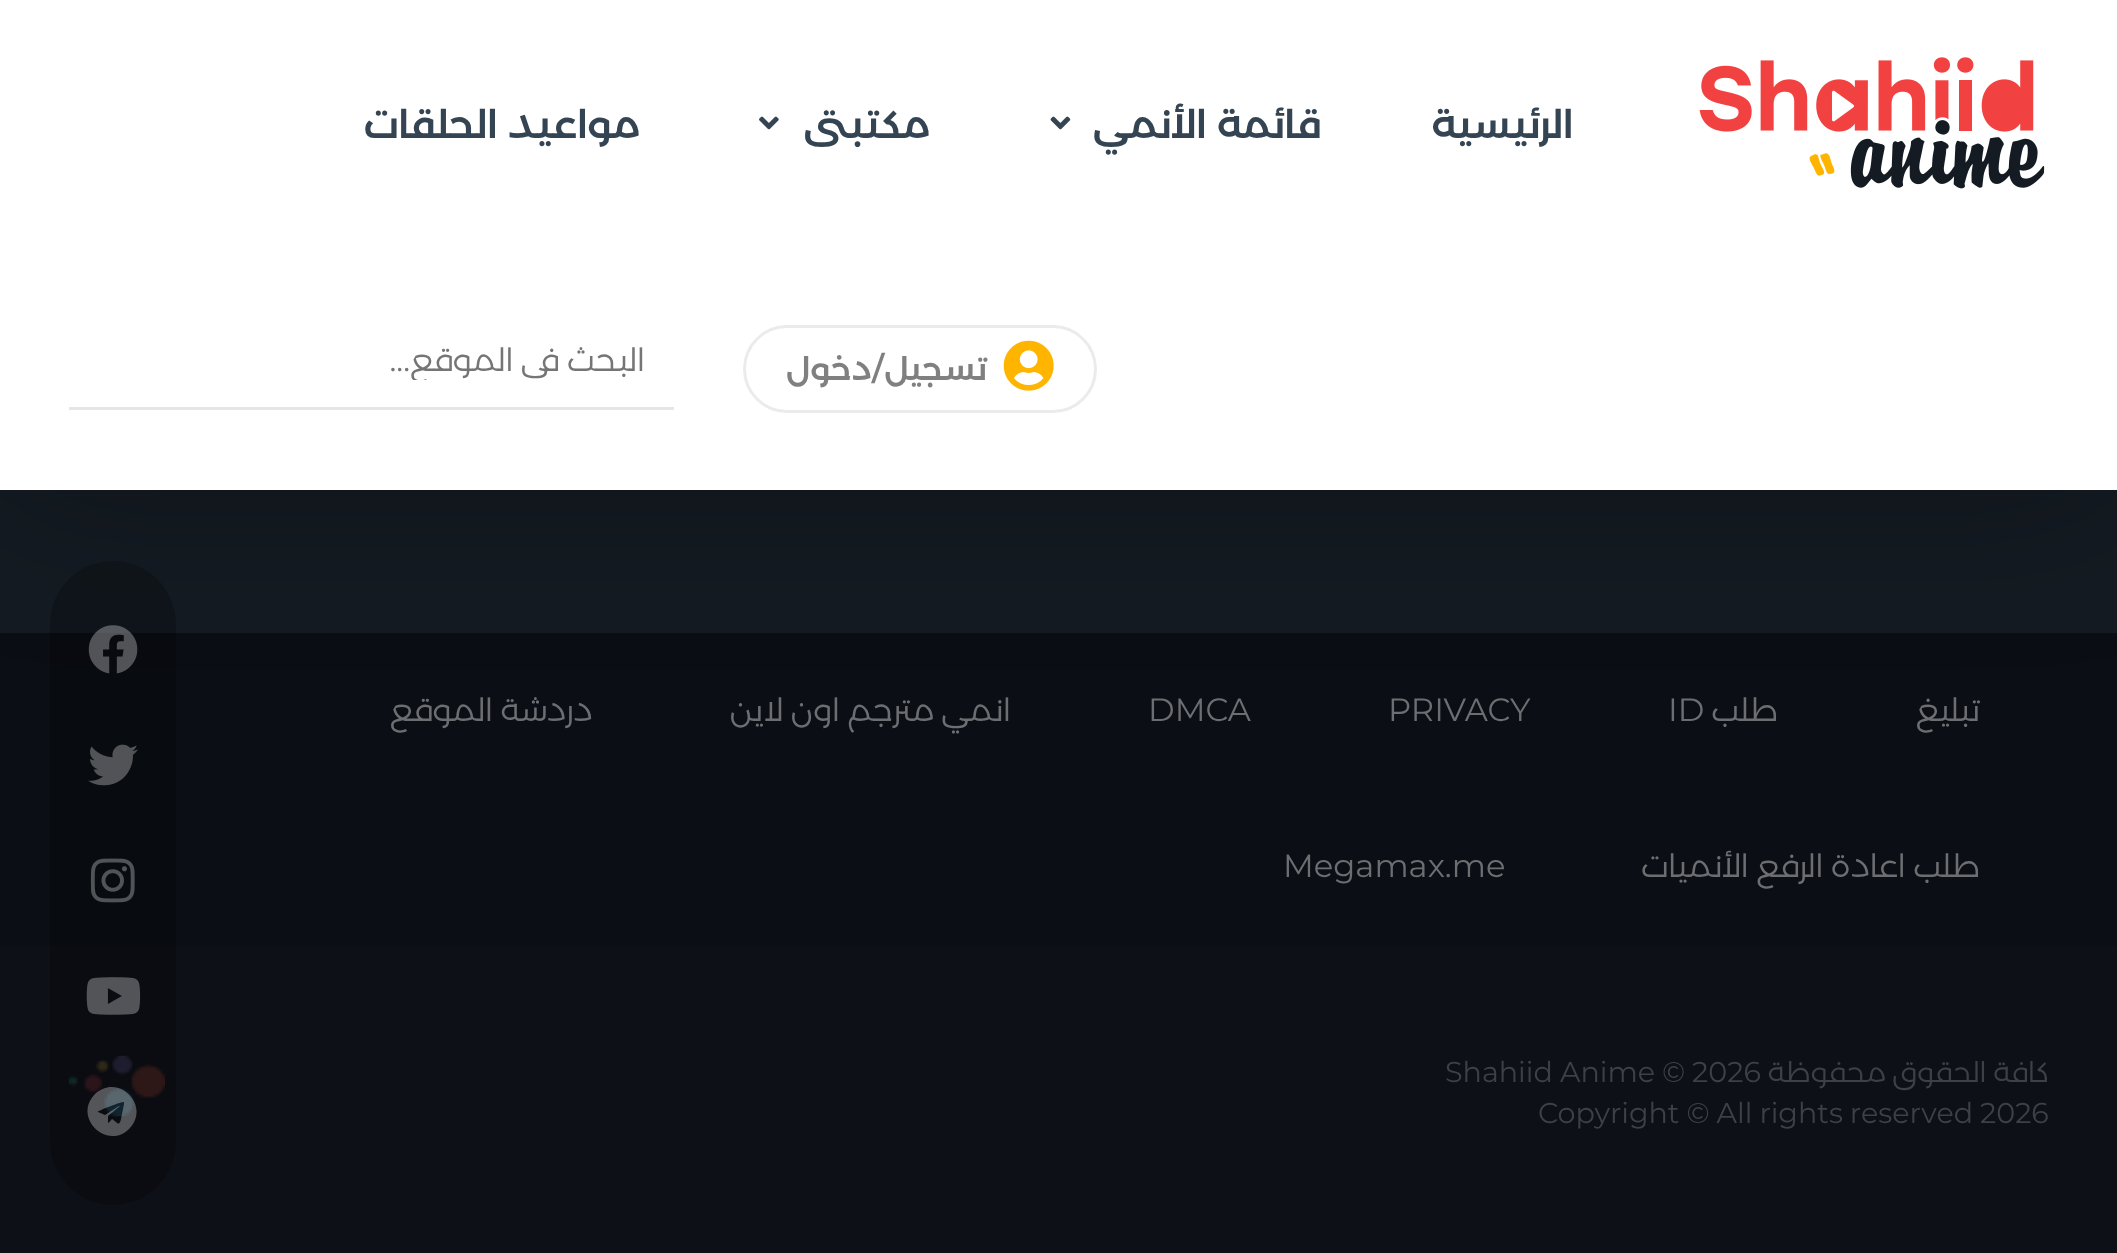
(async () => {
const canvas = document.querySelector("canvas")
canvas.width = 2117
canvas.height = 1253
const c = canvas.getContext("2d")
c.miterLimit = 4
c.fontKerning = "normal"
function T(s,x,y){c.fillText(s,x,y)}
function R(x,y,w,h){c.fillRect(x,y,w,h)}
function Q(x,y,w,h,r){c.beginPath();c.roundRect(x,y,w,h,r);c.fill()}
async function I(src,x,y,w,h){const img=new Image();img.src=src;await img.decode();c.drawImage(img,x,y,w,h)}
let path
c.fillStyle="#141b22"
R(0,0,2117,1253)
c.fillStyle="#0b0e14"
R(0,633,2117,313)
c.fillStyle="#0000004d"
c.filter="blur(82.5px)"
c.beginPath()
c.rect(0,0,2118,490)
c.fill()
c.filter="none"
c.fillStyle="#fff"
R(0,0,2117,490)
await I("1.png",1699,57,346,132)
c.direction="rtl"
c.font="500 39.25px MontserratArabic"
c.fillStyle="#354452"
T("الرئيسية",1574,138)
T("قائمة الأنمي",1321,138)
await I("2.png",1050,116,21,14)
T("مكتبتى",930,138)
await I("3.png",759,116,20,14)
T("مواعيد الحلقات",640,138)
c.beginPath()
c.roundRect(744.5,326.5,351,85,42.5)
c.strokeStyle="#ebebeb"
c.lineWidth=3
c.stroke()
await I("4.png",1003,340,51,51)
c.font="600 32.25px Montserrat"
c.fillStyle="#808080"
T("/",884,380)
c.font="500 32.25px MontserratArabic"
T("تسجيل",987,380)
T("دخول",872,380)
c.fillStyle="#e6e6e6"
R(69,407,605,3)
c.save()
c.beginPath()
c.rect(102,341,550,39)
c.clip()
c.font="300 32.25px MontserratArabic"
c.fillStyle="#757575"
T("البحث في الموقع",645,371)
c.restore()
c.font="32.25px Montserrat"
c.fillStyle="#757575"
T("...",410,371)
c.fillStyle="#0d1016"
R(0,946,2117,307)
await I("9.png",68,1055,97,62)
c.fillStyle="#00000033"
Q(50,561,126,644,63)
await I("5.png",88,625,50,49)
await I("6.png",88,744,50,42)
await I("7.png",90,858,45,45)
await I("8.png",86,977,55,38)
c.fillStyle="#ffffff4d"
path = new Path2D("M95 1094c23-22 57 12 34 35c-22 22-57-12-34-35zm29 10c1-4-4-1-5-1l-16 6c-3 2-6 2-5 3l7 3l14-9h1l-12 10v7c1 0 3-3 4-4c6 4 7 8 9 0z")
c.fill(path)
c.font="300 32.25px MontserratArabic"
c.fillStyle="#6d6e72"
T("تبليغ",1980,721)
T("طلب",1778,721)
c.direction="ltr"
c.font="32.25px Montserrat"
T("ID",1668,721)
T("PRIVACY",1388,721)
T("DMCA",1148,721)
c.direction="rtl"
c.font="300 32.25px MontserratArabic"
T("انمي مترجم اون لاين",1011,721)
T("دردشة الموقع",593,721)
T("طلب اعادة الرفع الأنميات",1980,877)
c.direction="ltr"
c.font="32.25px Montserrat"
T("Megamax.me",1283,877)
c.direction="rtl"
c.font="300 28.6px MontserratArabic"
c.fillStyle="#3d4045"
T("كافة الحقوق محفوظة",2049,1082)
c.wordSpacing="-0.5px"
c.direction="ltr"
c.font="28.6px Montserrat"
T("Shahiid Anime © 2026",1445,1082)
T("Copyright © All rights reserved 2026",1538,1123)
})()
